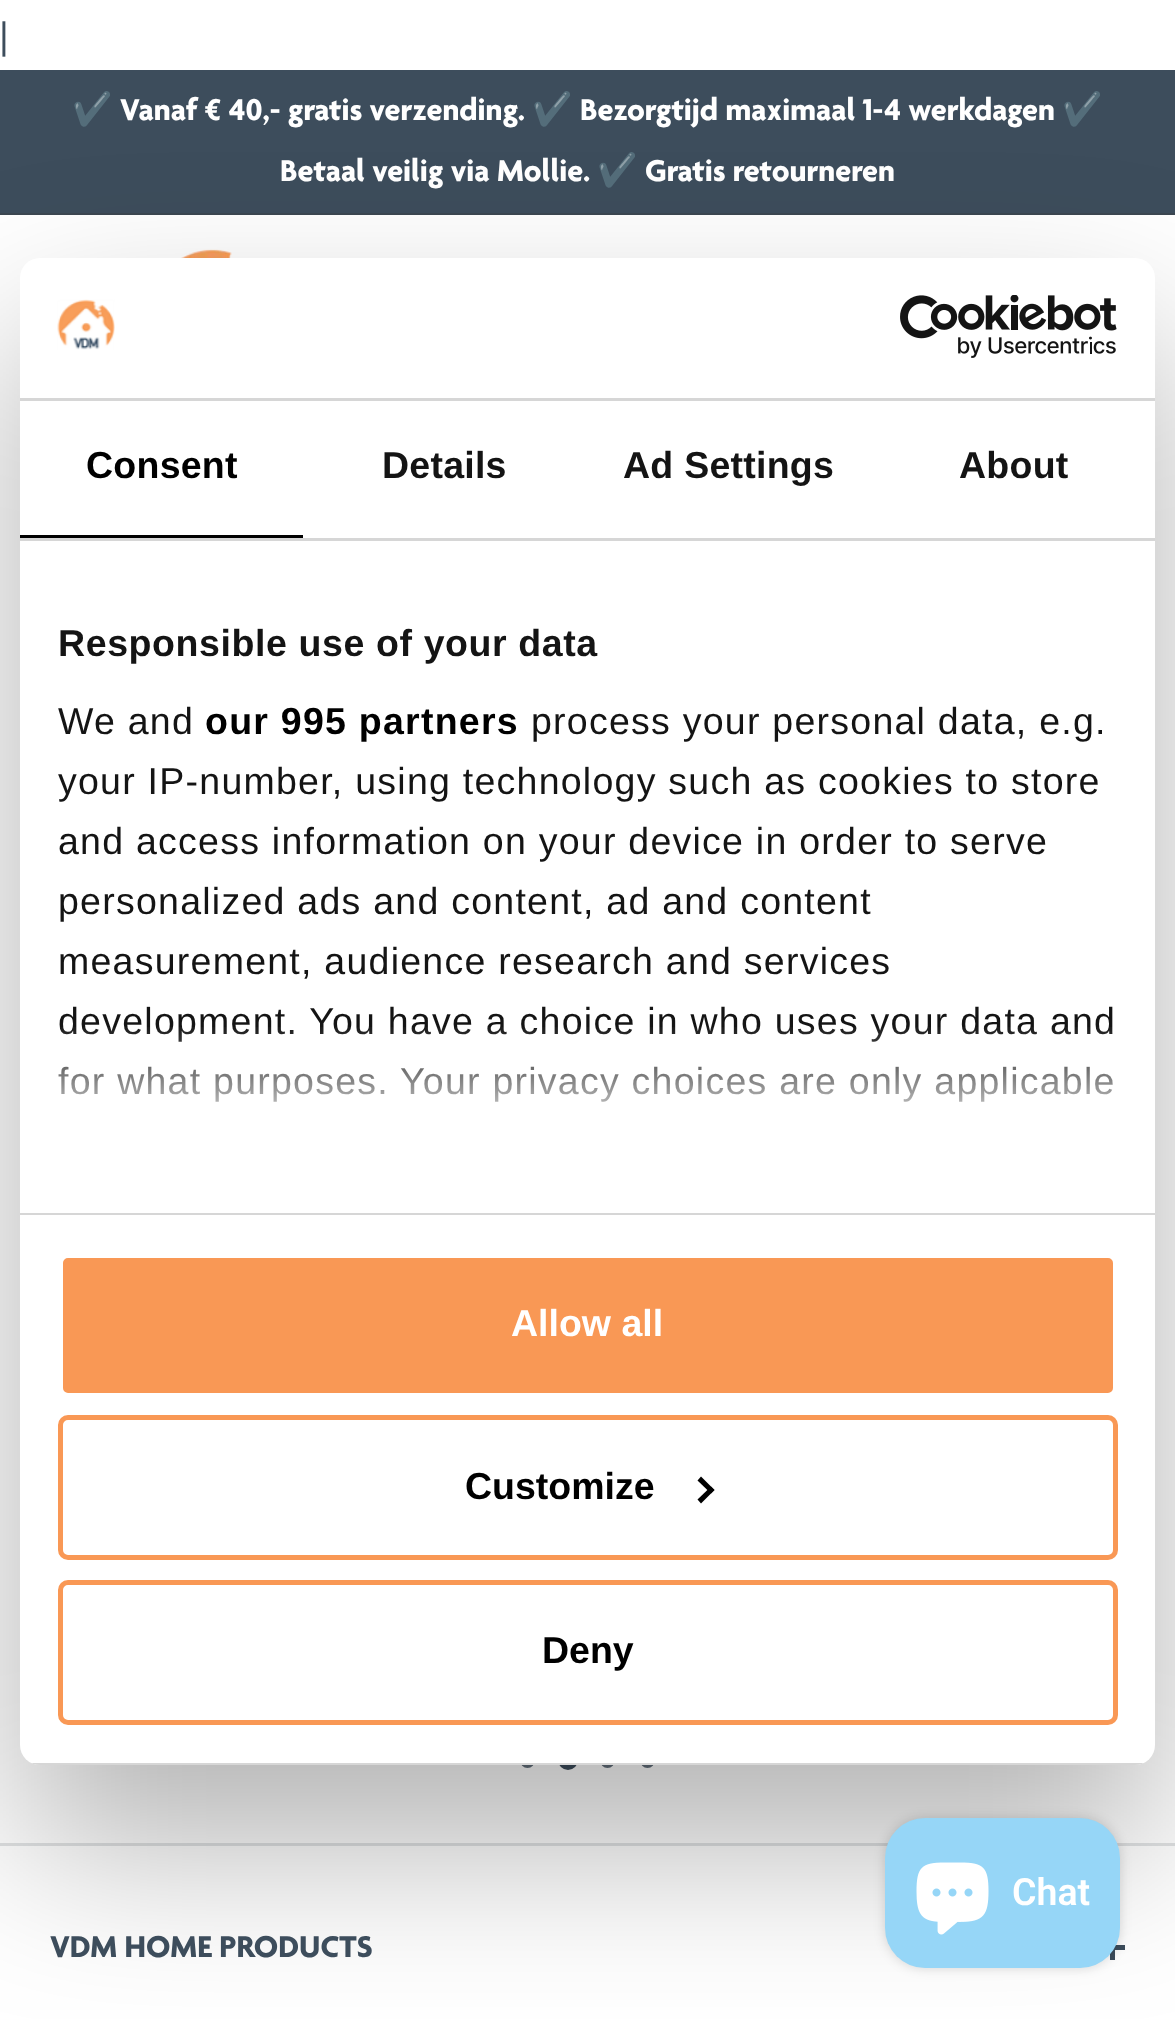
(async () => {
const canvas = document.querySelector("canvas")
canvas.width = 1175
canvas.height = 2019
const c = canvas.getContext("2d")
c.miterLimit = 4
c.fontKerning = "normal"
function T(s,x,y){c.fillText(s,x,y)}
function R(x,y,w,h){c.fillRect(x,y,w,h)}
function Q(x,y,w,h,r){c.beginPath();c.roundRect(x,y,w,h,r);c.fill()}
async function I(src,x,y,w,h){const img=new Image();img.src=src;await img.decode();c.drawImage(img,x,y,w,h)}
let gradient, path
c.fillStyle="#fff"
R(0,0,1175,2019)
c.font="500 37.5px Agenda"
c.fillStyle="#3d4d5c"
T("|",0,48)
R(0,70,1175,143)
c.fillStyle="#3c4751"
R(0,213,1175,2)
c.font="bold 32.5px Noto Color Emoji"
c.fillStyle="#fff"
T("✔️",72,120)
c.font="bold 32.5px Agenda"
T("Vanaf € 40,- gratis verzending.",120,120)
c.font="bold 32.5px Noto Color Emoji"
T("✔️",532,120)
c.font="bold 32.5px Agenda"
T("Bezorgtijd maximaal 1-4 werkdagen",580,120)
c.font="bold 32.5px Noto Color Emoji"
T("✔️",1062,120)
c.font="bold 32.5px Agenda"
T("Betaal veilig via Mollie.",280,181)
c.font="bold 32.5px Noto Color Emoji"
T("✔️",597,181)
c.font="bold 32.5px Agenda"
T("Gratis retourneren",645,181)
await I("1.png",180,249,52,9)
c.fillStyle="#64717d"
c.beginPath()
c.arc(527.5,1760.5,7.5,0,7)
c.fill()
c.fillStyle="#3d4d5c"
c.beginPath()
c.arc(568,1760,10,0,7)
c.fill()
c.fillStyle="#64717d"
c.beginPath()
c.arc(607.5,1760.5,7.5,0,7)
c.fill()
c.beginPath()
c.arc(647.5,1760.5,7.5,0,7)
c.fill()
c.fillStyle="#e1e3e4"
R(0,1843,1175,3)
c.fillStyle="#3d4d5c"
R(1113,1945,12,5)
R(1110,1950,5,10)
c.fillStyle="#0000004d"
c.filter="blur(85px)"
c.beginPath()
c.roundRect(20,338,1135,1507,20)
c.fill()
c.filter="none"
c.fillStyle="#fff"
Q(20,258,1135,1507,20)
c.fillStyle="#d6d6d6"
R(20,398,1135,3)
await I("2.png",57,299,58,51)
await I("3.png",900,295,217,63)
R(20,538,1135,3)
c.fillStyle="#000"
R(20,535,283,3)
c.letterSpacing="0.25px"
c.font="bold 37.5px Liberation Sans"
T("Consent",86,478)
c.fillStyle="#141414"
T("Details",382,478)
T("Ad Settings",623,478)
T("About",959,478)
c.fillStyle="#d6d6d6"
R(20,1213,1135,2)
c.letterSpacing="0.6px"
c.fillStyle="#141414"
T("Responsible use of your data",58,656)
c.letterSpacing="1.25px"
c.font="37.5px Liberation Sans"
T("We and",58,734)
c.font="bold 37.5px Liberation Sans"
c.fillStyle="#000"
T("our 995 partners",205,734)
c.font="37.5px Liberation Sans"
c.fillStyle="#141414"
T("process your personal data, e.g.",531,734)
T("your IP-number, using technology such as cookies to store",58,794)
T("and access information on your device in order to serve",58,854)
T("personalized ads and content, ad and content",58,914)
T("measurement, audience research and services",58,974)
T("development. You have a choice in who uses your data and",58,1034)
T("for what purposes. Your privacy choices are only applicable",58,1094)
gradient = c.createLinearGradient(571,1212,571,1024)
gradient.addColorStop(0,"#fff")
gradient.addColorStop(.5,"#ffffffcc")
gradient.addColorStop(1,"#ffffff00")
c.fillStyle = gradient
R(58,1027,1055,75)
c.save()
c.beginPath()
c.roundRect(20,258,1135,1507,20)
c.clip()
c.fillStyle="#d6d6d6"
R(31,1763,1113,2)
c.restore()
c.fillStyle="#f99855"
c.beginPath()
c.roundRect(60.5,1255.5,1055,140,7.5)
c.fill()
c.strokeStyle="#fff"
c.lineWidth=5
c.stroke()
c.letterSpacing="0px"
c.font="bold 37.5px Liberation Sans"
c.fillStyle="#fff"
T("Allow all",511,1336)
c.beginPath()
c.roundRect(60.5,1417.5,1055,140,7.5)
c.strokeStyle="#f99855"
c.stroke()
c.fillStyle="#000"
T("Customize",465,1499)
path = new Path2D("M701 1476.5l13.5 13.5l-3.5 3.5l-13.5-13z")
c.fill(path)
path = new Path2D("M711 1486.5l3.5 3.5l-13.5 13.5l-3.5-4z")
c.fill(path)
c.beginPath()
c.roundRect(60.5,1582.5,1055,140,7.5)
c.stroke()
T("Deny",542,1663)
c.fillStyle="#00000026"
c.filter="blur(6px)"
c.beginPath()
c.roundRect(885,1818,235,150,40)
c.fill()
c.filter="none"
c.fillStyle="#96d6f7"
Q(885,1818,235,150,40)
await I("4.png",916,1862,73,73)
c.font="600 37.5px Roboto"
c.fillStyle="#fff"
T("Chat",1012,1905)
c.font="bold 32.5px Agenda"
c.fillStyle="#3d4d5c"
T("VDM HOME PRODUCTS",50,1957)
})()
